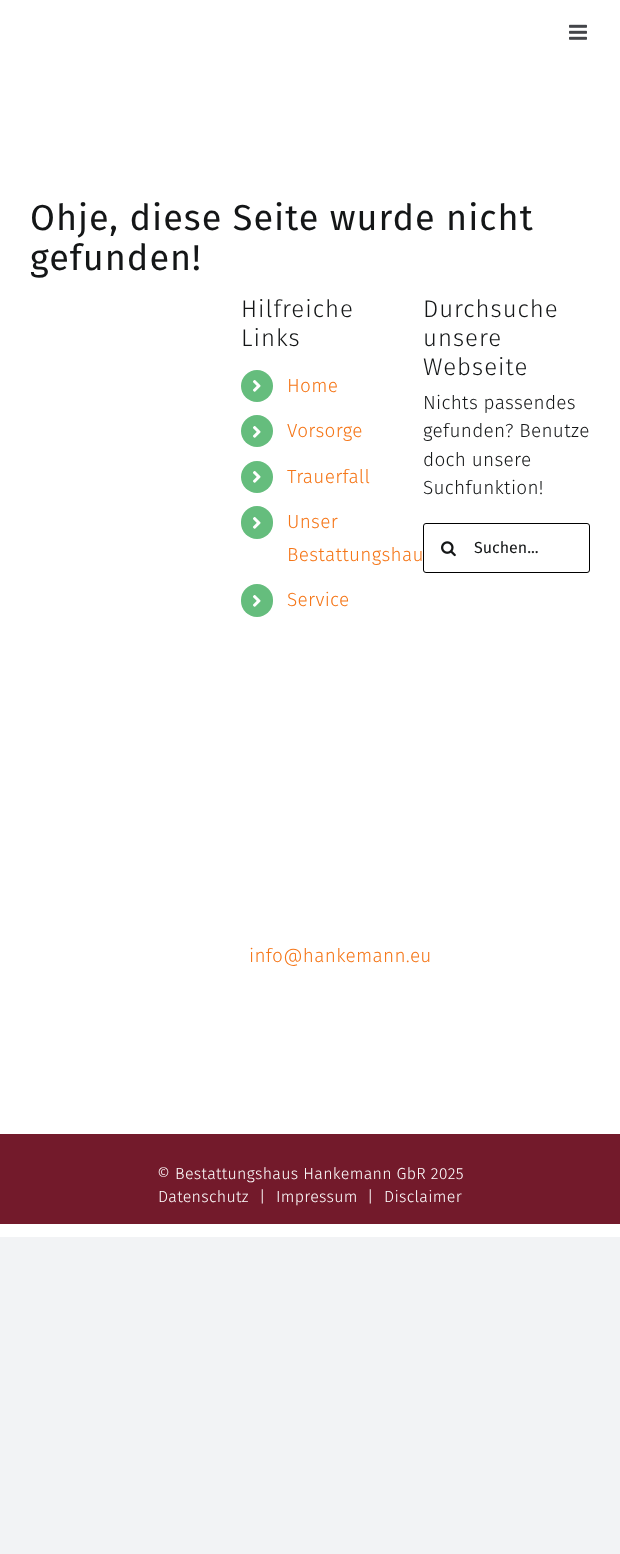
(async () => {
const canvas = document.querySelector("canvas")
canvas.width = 620
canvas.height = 1554
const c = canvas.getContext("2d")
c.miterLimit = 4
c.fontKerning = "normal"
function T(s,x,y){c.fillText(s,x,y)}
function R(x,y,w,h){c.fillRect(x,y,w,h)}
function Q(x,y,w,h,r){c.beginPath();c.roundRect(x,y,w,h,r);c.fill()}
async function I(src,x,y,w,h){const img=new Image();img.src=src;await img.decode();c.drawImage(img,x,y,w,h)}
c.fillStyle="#f2f3f5"
R(0,0,620,1554)
c.fillStyle="#fff"
R(0,0,620,1237)
await I("1.png",569,24,18,16)
c.letterSpacing="1px"
c.font="36px Fira Sans"
c.fillStyle="#141617"
T("Ohje, diese Seite wurde nicht",30,230)
T("gefunden!",30,270)
c.font="300 24px Fira Sans"
T("Hilfreiche",241,317)
T("Links",241,346)
c.fillStyle="#65bd7d"
c.beginPath()
c.arc(257,386,16,0,7)
c.fill()
await I("2.png",253,380,8,12)
c.letterSpacing="0.3px"
c.font="300 19px Fira Sans"
c.fillStyle="#f57618"
T("Home",287,392)
c.fillStyle="#65bd7d"
c.beginPath()
c.arc(257,431,16,0,7)
c.fill()
await I("2.png",253,426,8,12)
c.fillStyle="#f57618"
T("Vorsorge",287,437)
c.fillStyle="#65bd7d"
c.beginPath()
c.arc(257,477,16,0,7)
c.fill()
await I("2.png",253,471,8,12)
c.fillStyle="#f57618"
T("Trauerfall",287,483)
c.fillStyle="#65bd7d"
Q(241,506,32,33,16)
await I("2.png",253,517,8,12)
c.fillStyle="#f57618"
T("Unser",287,528)
T("Bestattungshau",287,561)
c.fillStyle="#65bd7d"
Q(241,584,32,33,16)
await I("2.png",253,595,8,12)
c.fillStyle="#f57618"
T("Service",287,606)
c.letterSpacing="1px"
c.font="300 24px Fira Sans"
c.fillStyle="#141617"
T("Durchsuche",423,317)
T("unsere",423,346)
T("Webseite",423,375)
c.letterSpacing="0.3px"
c.font="300 19px Fira Sans"
T("Nichts passendes",423,409)
T("gefunden? Benutze",423,437)
T("doch unsere",423,466)
T("Suchfunktion!",423,494)
c.beginPath()
c.roundRect(423.5,523.5,166,49,2.5)
c.strokeStyle="#000"
c.stroke()
await I("3.png",441,541,15,16)
c.letterSpacing="0px"
c.font="16px Fira Sans"
T("Suchen...",474,553)
c.letterSpacing="0.3px"
c.font="300 19px Fira Sans"
c.fillStyle="#f57618"
T("info@hankemann.eu",249,962)
c.fillStyle="#731a2b"
R(0,1134,620,90)
c.font="300 16px Fira Sans"
c.fillStyle="#fff"
T("© Bestattungshaus Hankemann GbR 2025",157,1179)
T("Datenschutz",158,1202)
T("|",259,1202)
T("Impressum",276,1202)
T("|",367,1202)
T("Disclaimer",384,1202)
})()
